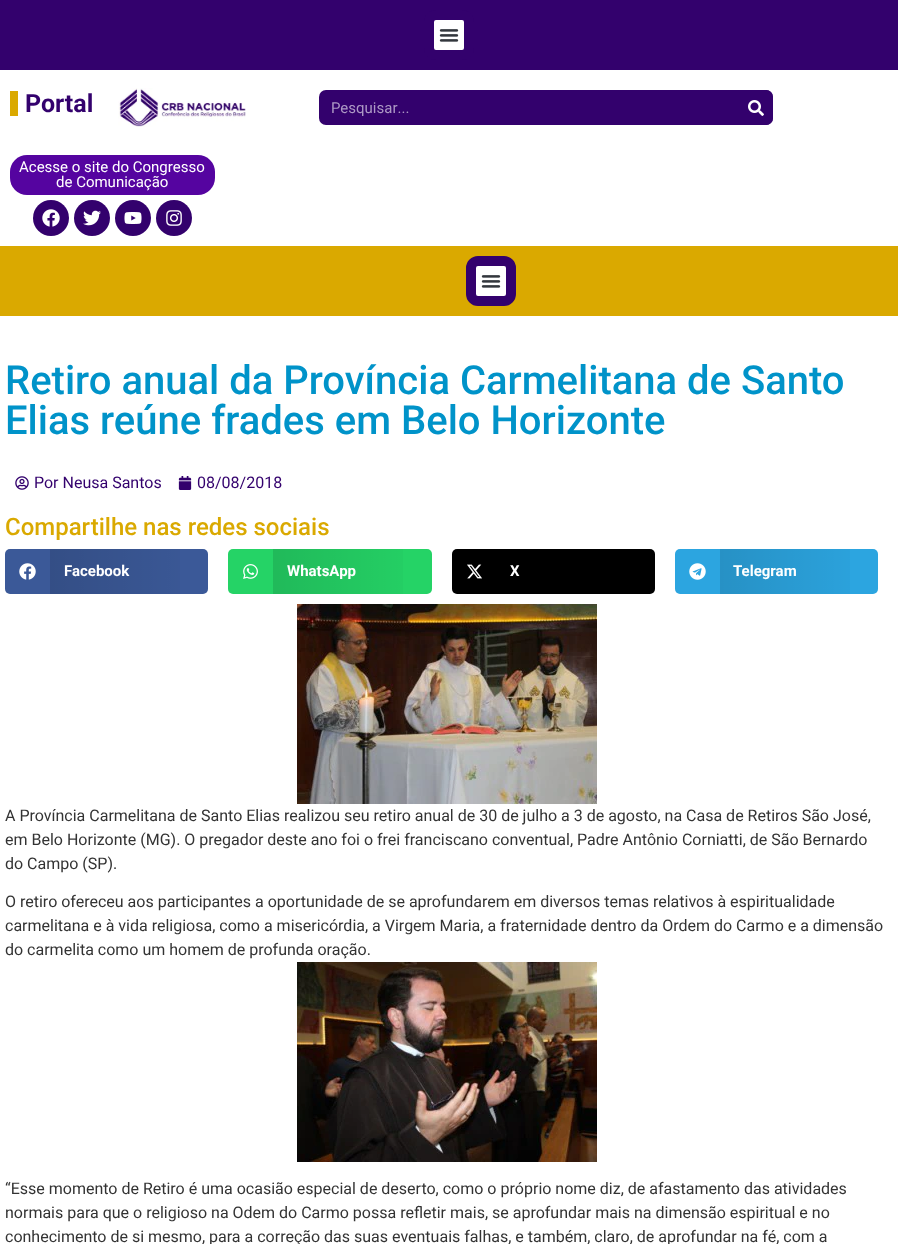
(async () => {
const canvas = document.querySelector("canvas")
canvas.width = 898
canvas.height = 1244
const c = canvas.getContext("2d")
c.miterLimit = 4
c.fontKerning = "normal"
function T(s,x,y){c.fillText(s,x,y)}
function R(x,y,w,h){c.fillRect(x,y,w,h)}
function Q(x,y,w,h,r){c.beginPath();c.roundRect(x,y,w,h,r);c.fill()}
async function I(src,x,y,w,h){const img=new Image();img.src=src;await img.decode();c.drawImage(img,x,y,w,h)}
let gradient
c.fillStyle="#fff"
R(0,0,898,1244)
c.fillStyle="#33016d"
R(0,0,898,70)
c.fillStyle="#fff"
c.beginPath()
c.roundRect(429,15,40,40,7)
c.fill()
c.strokeStyle="#33016d"
c.lineWidth=10
c.stroke()
await I("1.png",439,29,20,13)
c.fillStyle="#daa900"
R(10,91,8,25)
c.font="bold 25px Roboto"
c.fillStyle="#33016d"
T("Portal",25,112)
await I("2.png",118,88,128,39)
Q(319,90,454,35,7)
c.font="15px Roboto"
c.fillStyle="#ad99c5"
T("Pesquisar...",331,113)
c.fillStyle="#33016d"
c.beginPath()
c.roundRect(738,90,35,35,[0,7,7,0])
c.fill()
await I("3.png",748,100,16,16)
c.fillStyle="#5504a0"
Q(10,155,205,40,17)
c.fillStyle="#fff"
T("Acesse o site do Congresso",19,172)
T("de Comunicação",56,187)
c.fillStyle="#33016d"
c.beginPath()
c.arc(51,218,18,0,7)
c.fill()
await I("4.png",42,209,18,18)
c.beginPath()
c.arc(92,218,18,0,7)
c.fill()
await I("5.png",83,210,18,16)
c.beginPath()
c.arc(133,218,18,0,7)
c.fill()
await I("6.png",124,212,18,12)
c.beginPath()
c.arc(174,218,18,0,7)
c.fill()
await I("7.png",166,210,16,16)
c.fillStyle="#daa900"
R(0,246,898,70)
c.fillStyle="#fff"
c.beginPath()
c.roundRect(471,261,40,40,7)
c.fill()
c.stroke()
await I("1.png",481,275,20,13)
c.font="500 40px Roboto"
c.fillStyle="#0093c9"
T("Retiro anual da Província Carmelitana de Santo",5,394)
T("Elias reúne frades em Belo Horizonte",5,434)
await I("8.png",15,476,14,14)
c.font="16px Roboto"
c.fillStyle="#33016d"
T("Por Neusa Santos",34,488)
await I("9.png",178,476,14,14)
T("08/08/2018",197,488)
c.font="500 24px Roboto"
c.fillStyle="#daa900"
T("Compartilhe nas redes sociais",5,535)
c.fillStyle="#3b5998"
Q(5,549,203,45,5)
await I("10.png",19,563,17,17)
gradient = c.createLinearGradient(50,572,208,572)
gradient.addColorStop(0,"#0000001f")
gradient.addColorStop(1,"#00000000")
c.fillStyle = gradient
R(50,549,130,45)
c.font="bold 15px Roboto"
c.fillStyle="#fff"
T("Facebook",64,576)
c.fillStyle="#25d366"
Q(228,549,204,45,5)
await I("11.png",243,564,15,15)
gradient = c.createLinearGradient(273,572,432,572)
gradient.addColorStop(0,"#0000001f")
gradient.addColorStop(1,"#00000000")
c.fillStyle = gradient
R(273,549,130,45)
c.fillStyle="#fff"
T("WhatsApp",287,576)
c.fillStyle="#000"
Q(452,549,203,45,5)
await I("12.png",467,564,15,15)
c.fillStyle="#fff"
T("X",510,576)
c.fillStyle="#2ca5e0"
Q(675,549,203,45,5)
await I("13.png",689,563,17,17)
gradient = c.createLinearGradient(720,572,878,572)
gradient.addColorStop(0,"#0000001f")
gradient.addColorStop(1,"#00000000")
c.fillStyle = gradient
R(720,549,130,45)
c.fillStyle="#fff"
T("Telegram",733,576)
await I("14.png",297,604,300,200)
c.font="16px Roboto"
c.fillStyle="#333"
T("A Província Carmelitana de Santo Elias realizou seu retiro anual de 30 de julho a 3 de agosto, na Casa de Retiros São José,",5,821)
T("em Belo Horizonte (MG). O pregador deste ano foi o frei franciscano conventual, Padre Antônio Corniatti, de São Bernardo",5,845)
T("do Campo (SP).",5,869)
T("O retiro ofereceu aos participantes a oportunidade de se aprofundarem em diversos temas relativos à espiritualidade",5,907)
T("carmelitana e à vida religiosa, como a misericórdia, a Virgem Maria, a fraternidade dentro da Ordem do Carmo e a dimensão",5,931)
T("do carmelita como um homem de profunda oração.",5,955)
await I("15.png",297,962,300,200)
T("“Esse momento de Retiro é uma ocasião especial de deserto, como o próprio nome diz, de afastamento das atividades",5,1194)
T("normais para que o religioso na Odem do Carmo possa refletir mais, se aprofundar mais na dimensão espiritual e no",5,1218)
T("conhecimento de si mesmo, para a correção das suas eventuais falhas, e também, claro, de aprofundar na fé, com a",5,1242)
})()
